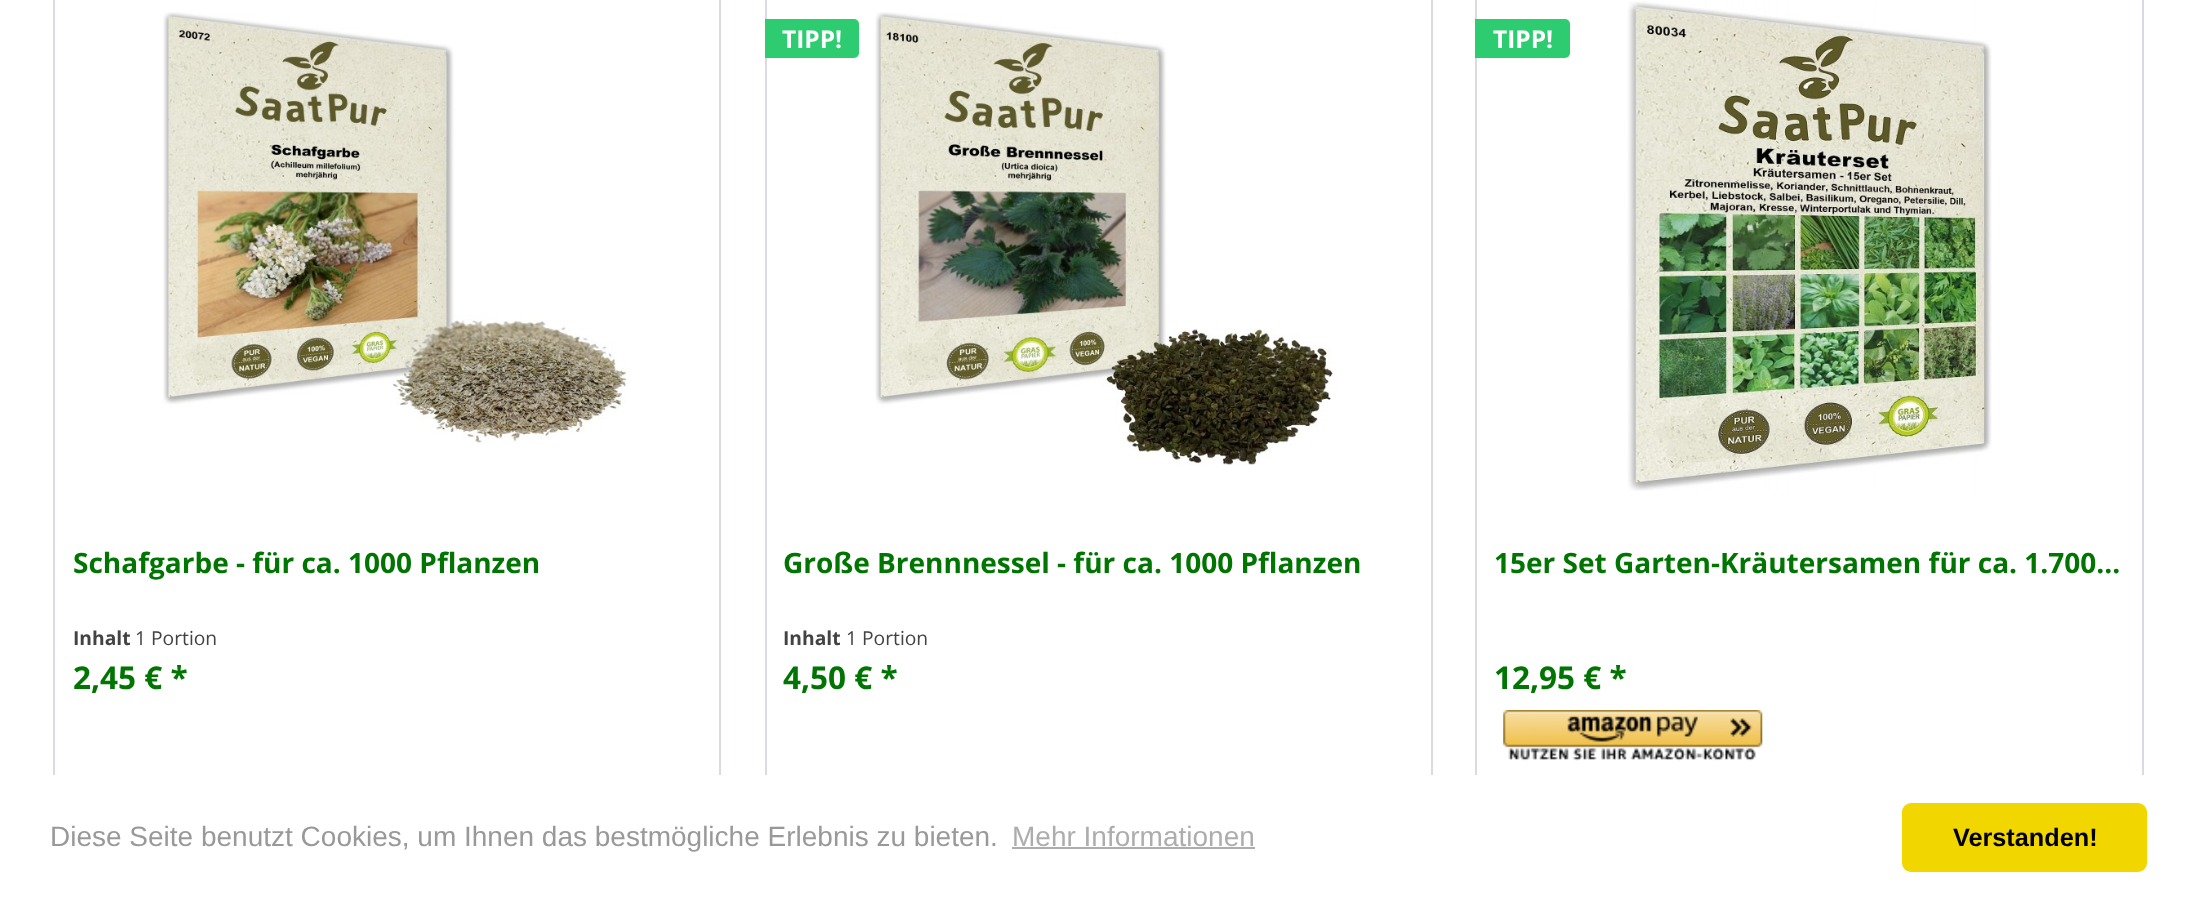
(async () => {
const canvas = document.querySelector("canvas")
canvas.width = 2197
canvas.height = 898
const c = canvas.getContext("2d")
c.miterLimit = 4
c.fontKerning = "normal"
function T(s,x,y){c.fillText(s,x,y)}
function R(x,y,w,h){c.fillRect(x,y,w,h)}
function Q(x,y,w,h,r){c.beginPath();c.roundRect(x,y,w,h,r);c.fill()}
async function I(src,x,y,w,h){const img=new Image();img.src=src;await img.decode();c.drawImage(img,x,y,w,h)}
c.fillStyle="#fff"
R(0,0,2197,898)
c.strokeStyle="#dadae5"
c.lineWidth=2
c.strokeRect(54,-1,666,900)
await I("1.png",163,12,465,433)
c.font="bold 28px Open Sans"
c.fillStyle="#007502"
T("Schafgarbe - für ca. 1000 Pflanzen",73,573)
c.font="bold 19.25px Open Sans"
c.fillStyle="#434343"
T("Inhalt",73,645)
c.font="19.25px Open Sans"
T("1 Portion",135,645)
c.font="bold 31.5px Open Sans"
c.fillStyle="#007502"
T("2,45 € *",73,689)
c.strokeRect(766,-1,666,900)
c.fillStyle="#2ecc71"
c.beginPath()
c.roundRect(765,19,94,39,[0,5,5,0])
c.fill()
c.font="bold 24.5px Open Sans"
c.fillStyle="#fff"
T("TIPP!",782,48)
await I("2.png",875,12,462,453)
c.font="bold 28px Open Sans"
c.fillStyle="#007502"
T("Große Brennnessel - für ca. 1000 Pflanzen",783,573)
c.font="bold 19.25px Open Sans"
c.fillStyle="#434343"
T("Inhalt",783,645)
c.font="19.25px Open Sans"
T("1 Portion",846,645)
c.font="bold 31.5px Open Sans"
c.fillStyle="#007502"
T("4,50 € *",783,689)
c.strokeRect(1476,-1,667,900)
c.fillStyle="#2ecc71"
c.beginPath()
c.roundRect(1475,19,95,39,[0,5,5,0])
c.fill()
c.font="bold 24.5px Open Sans"
c.fillStyle="#fff"
T("TIPP!",1493,48)
await I("3.png",1627,1,365,490)
c.font="bold 28px Open Sans"
c.fillStyle="#007502"
T("15er Set Garten-Kräutersamen für ca. 1.700...",1494,573)
c.font="bold 31.5px Open Sans"
T("12,95 € *",1494,689)
await I("4.png",1503,710,260,51)
c.fillStyle="#fff"
R(53,775,2091,123)
c.font="28px Liberation Sans"
c.fillStyle="#999"
T("Diese Seite benutzt Cookies, um Ihnen das bestmögliche Erlebnis zu bieten.",50,846)
c.fillStyle="#adadad"
T("Mehr Informationen",1012,846)
R(1012,847,243,2)
c.fillStyle="#f1d600"
Q(1902,803,245,69,9)
c.font="bold 25.25px Liberation Sans"
c.fillStyle="#000"
T("Verstanden!",1953,846)
})()
